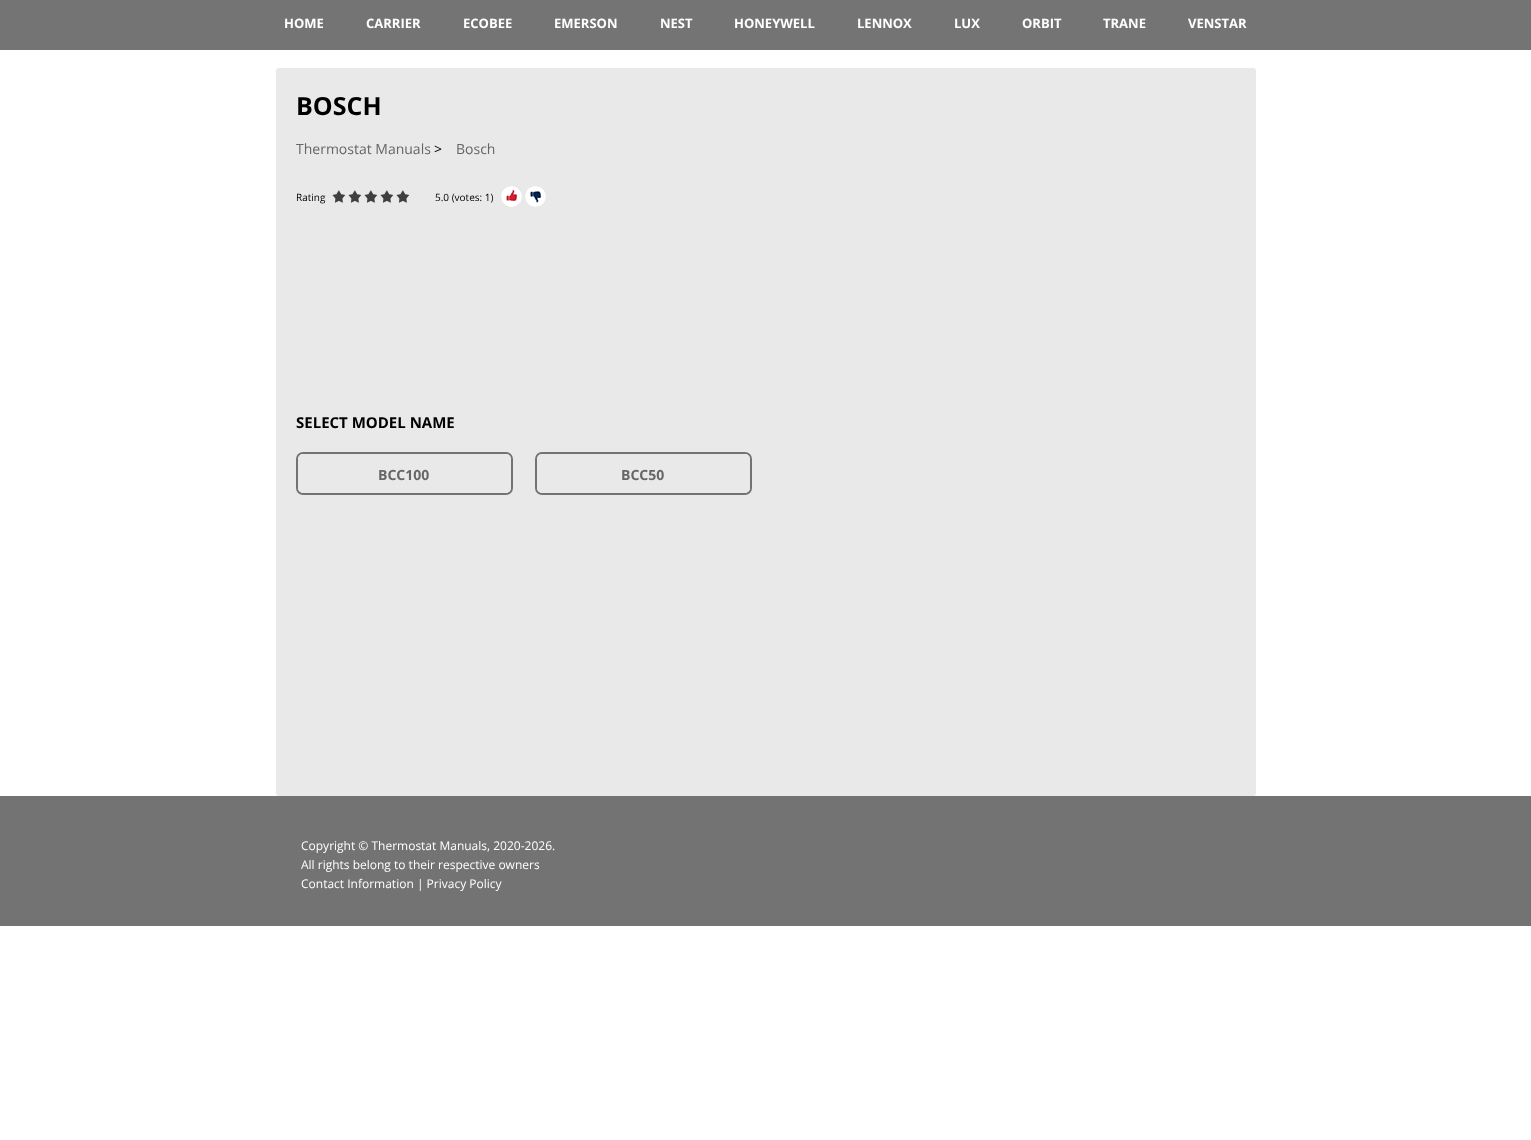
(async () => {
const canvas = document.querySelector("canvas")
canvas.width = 1531
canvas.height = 1140
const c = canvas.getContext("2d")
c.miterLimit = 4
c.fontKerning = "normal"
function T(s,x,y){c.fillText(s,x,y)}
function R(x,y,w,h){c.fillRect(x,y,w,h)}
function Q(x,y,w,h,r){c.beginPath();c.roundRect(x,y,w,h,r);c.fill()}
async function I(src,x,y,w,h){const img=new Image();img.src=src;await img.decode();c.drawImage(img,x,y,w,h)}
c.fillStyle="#fff"
R(0,0,1531,1140)
c.fillStyle="#747474"
R(0,0,1531,50)
c.font="bold 13px Open Sans"
c.fillStyle="#fff"
T("HOME",284,28)
T("CARRIER",366,28)
T("ECOBEE",463,28)
T("EMERSON",554,28)
T("NEST",660,28)
T("HONEYWELL",734,28)
T("LENNOX",857,28)
T("LUX",954,28)
T("ORBIT",1022,28)
T("TRANE",1103,28)
T("VENSTAR",1188,28)
c.fillStyle="#e9e9e9"
Q(276,68,980,728,3)
c.font="bold 25px Open Sans"
c.fillStyle="#000"
T("BOSCH",296,115)
c.font="14px Open Sans"
c.fillStyle="#666"
T("Thermostat Manuals",296,154)
c.fillStyle="#000"
T(">",434,154)
c.fillStyle="#666"
T("Bosch",456,154)
c.font="10px Open Sans"
c.fillStyle="#000"
T("Rating",296,201)
await I("1.png",332,190,77,13)
await I("2.png",332,190,78,13)
T("5.0 (votes: 1)",435,201)
await I("3.png",501,186,21,21)
await I("4.png",525,186,21,21)
c.font="bold 15px Open Sans"
T("SELECT MODEL NAME",296,428)
c.beginPath()
c.roundRect(297,453,215,41,6)
c.strokeStyle="#737373"
c.lineWidth=2
c.stroke()
c.fillStyle="#e9e9e9"
Q(298,454,213,39,5)
c.font="bold 14px Open Sans"
c.fillStyle="#666"
T("BCC100",378,480)
c.beginPath()
c.roundRect(536,453,215,41,6)
c.stroke()
c.fillStyle="#e9e9e9"
Q(537,454,213,39,5)
c.fillStyle="#666"
T("BCC50",621,480)
c.fillStyle="#737373"
R(0,796,1531,130)
c.font="12px Open Sans"
c.fillStyle="#fff"
T("Copyright © Thermostat Manuals, 2020-2026.",301,850)
T("All rights belong to their respective owners",301,869)
T("Contact Information | Privacy Policy",301,888)
})()
